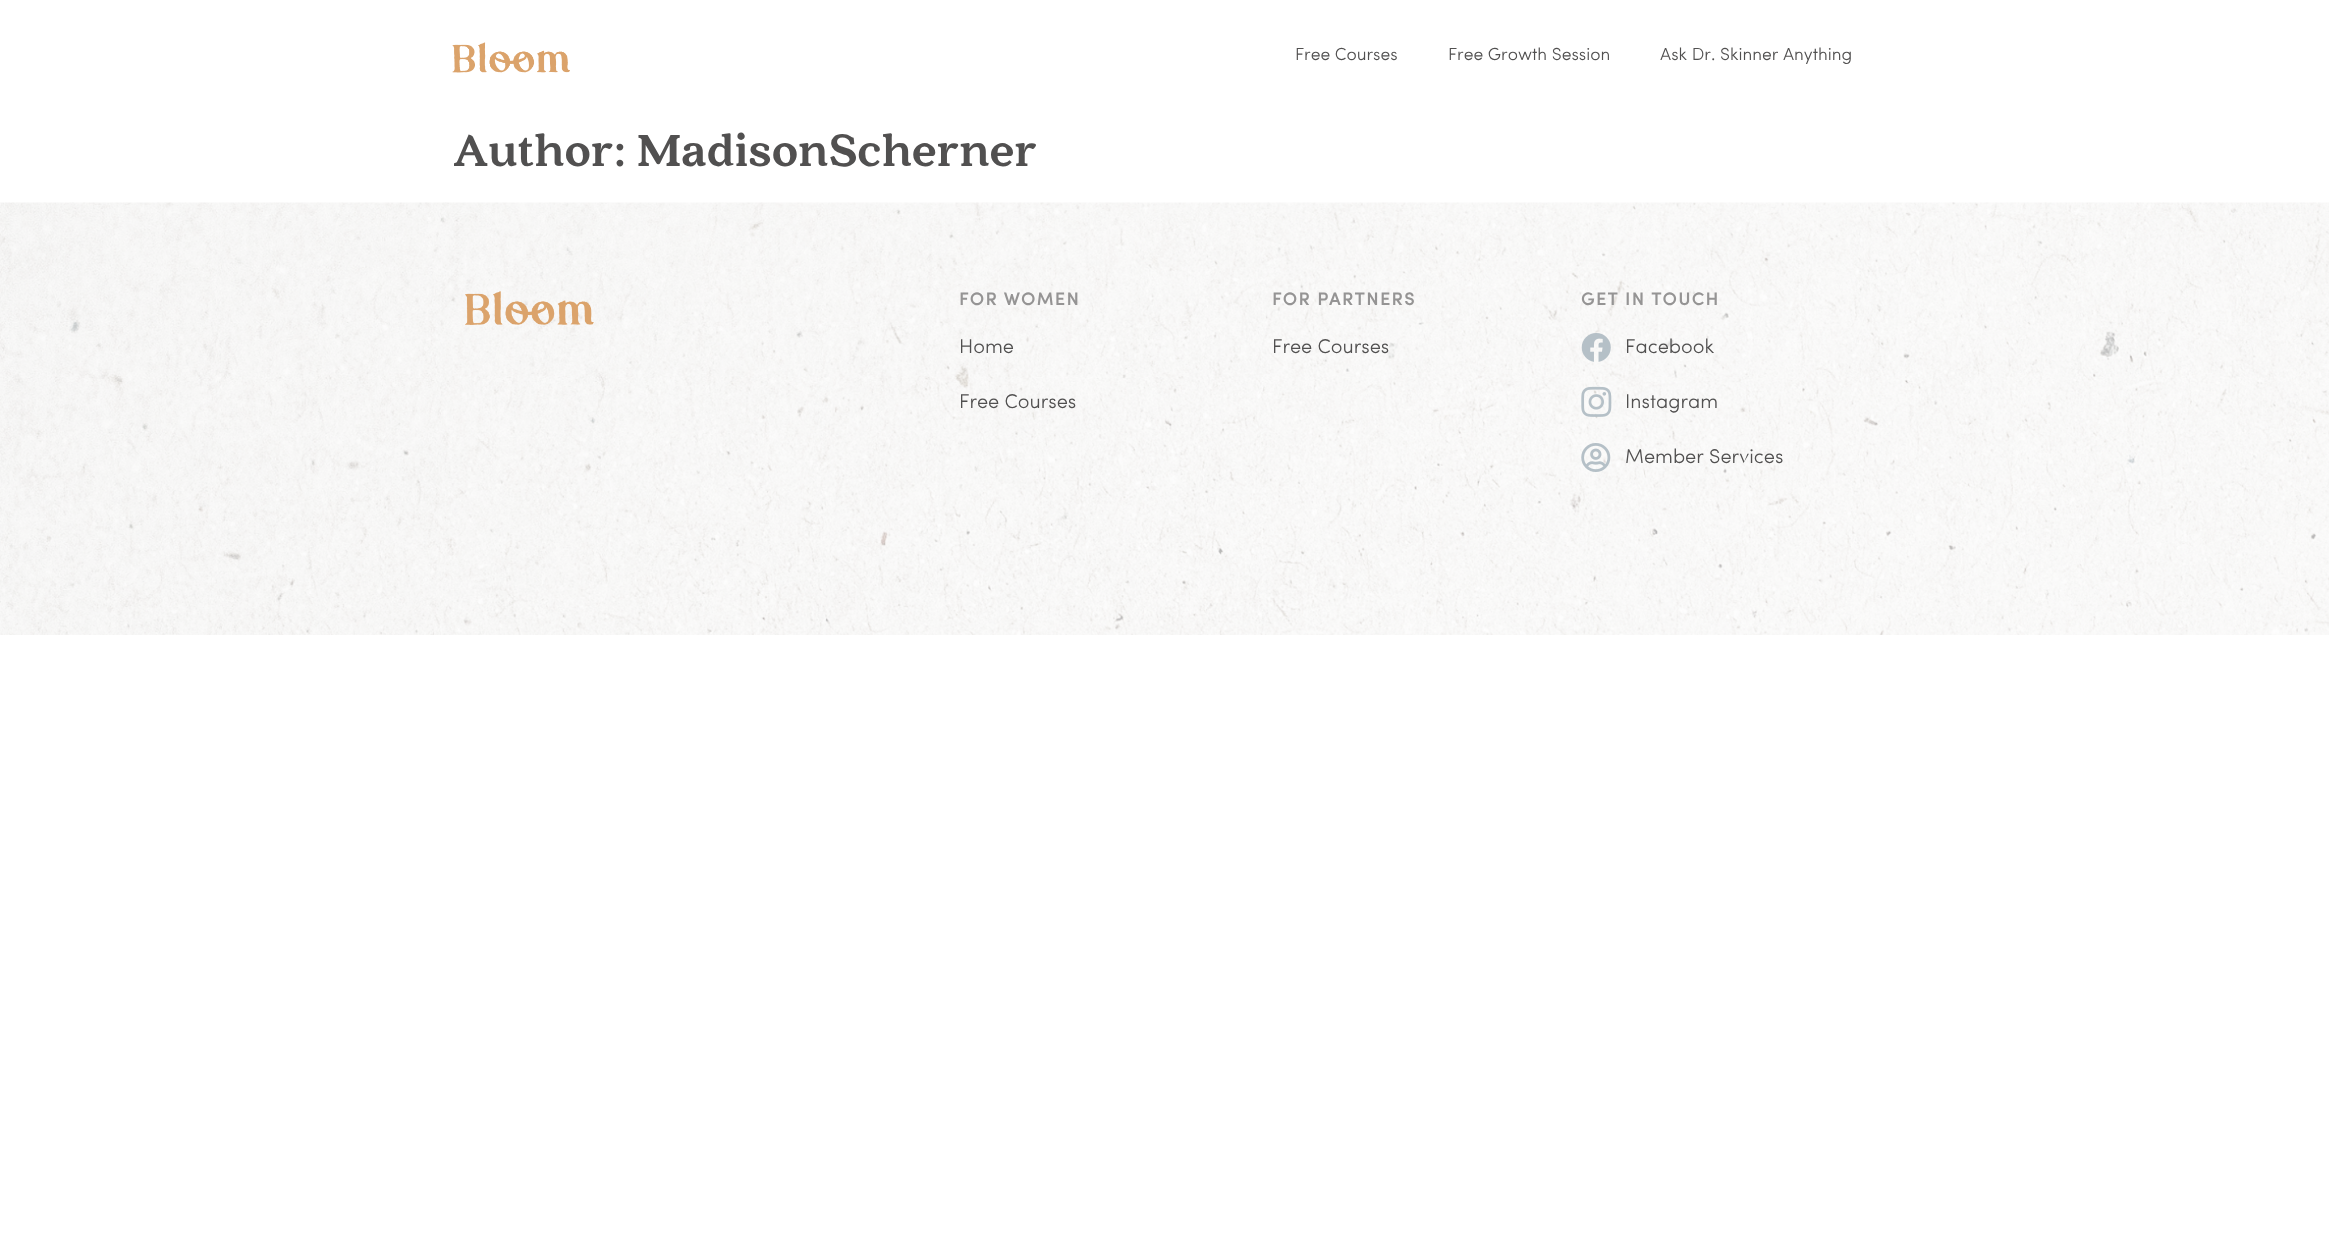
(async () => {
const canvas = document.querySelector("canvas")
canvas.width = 2329
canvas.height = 1236
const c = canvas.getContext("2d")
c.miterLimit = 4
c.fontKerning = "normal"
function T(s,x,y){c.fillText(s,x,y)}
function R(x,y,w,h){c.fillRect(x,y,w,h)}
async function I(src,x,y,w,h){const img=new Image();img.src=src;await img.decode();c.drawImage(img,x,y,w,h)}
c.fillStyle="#fff"
R(0,0,2329,1236)
await I("1.png",452,42,118,31)
c.font="300 17.5px Sofia"
c.fillStyle="#515050"
T("Free Courses",1295,60)
T("Free Growth Session",1448,60)
T("Ask Dr. Skinner Anything",1660,60)
c.font="900 50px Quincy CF"
T("Author: MadisonScherner",453,166)
await I("2.png",0,202,2329,433)
await I("3.png",465,291,129,34)
c.letterSpacing="1.75px"
c.font="bold 17.5px Sofia"
c.fillStyle="#959494"
T("FOR WOMEN",959,305)
c.letterSpacing="0px"
c.font="300 20px Sofia"
c.fillStyle="#515050"
T("Home",959,353)
T("Free Courses",959,408)
c.letterSpacing="1.75px"
c.font="bold 17.5px Sofia"
c.fillStyle="#959494"
T("FOR PARTNERS",1272,305)
c.letterSpacing="0px"
c.font="300 20px Sofia"
c.fillStyle="#515050"
T("Free Courses",1272,353)
c.letterSpacing="1.75px"
c.font="bold 17.5px Sofia"
c.fillStyle="#959494"
T("GET IN TOUCH",1581,305)
await I("4.png",1581,333,30,29)
c.letterSpacing="0px"
c.font="300 20px Sofia"
c.fillStyle="#515050"
T("Facebook",1625,353)
await I("5.png",1581,386,31,31)
T("Instagram",1625,408)
await I("6.png",1581,443,30,29)
T("Member Services",1625,463)
})()
